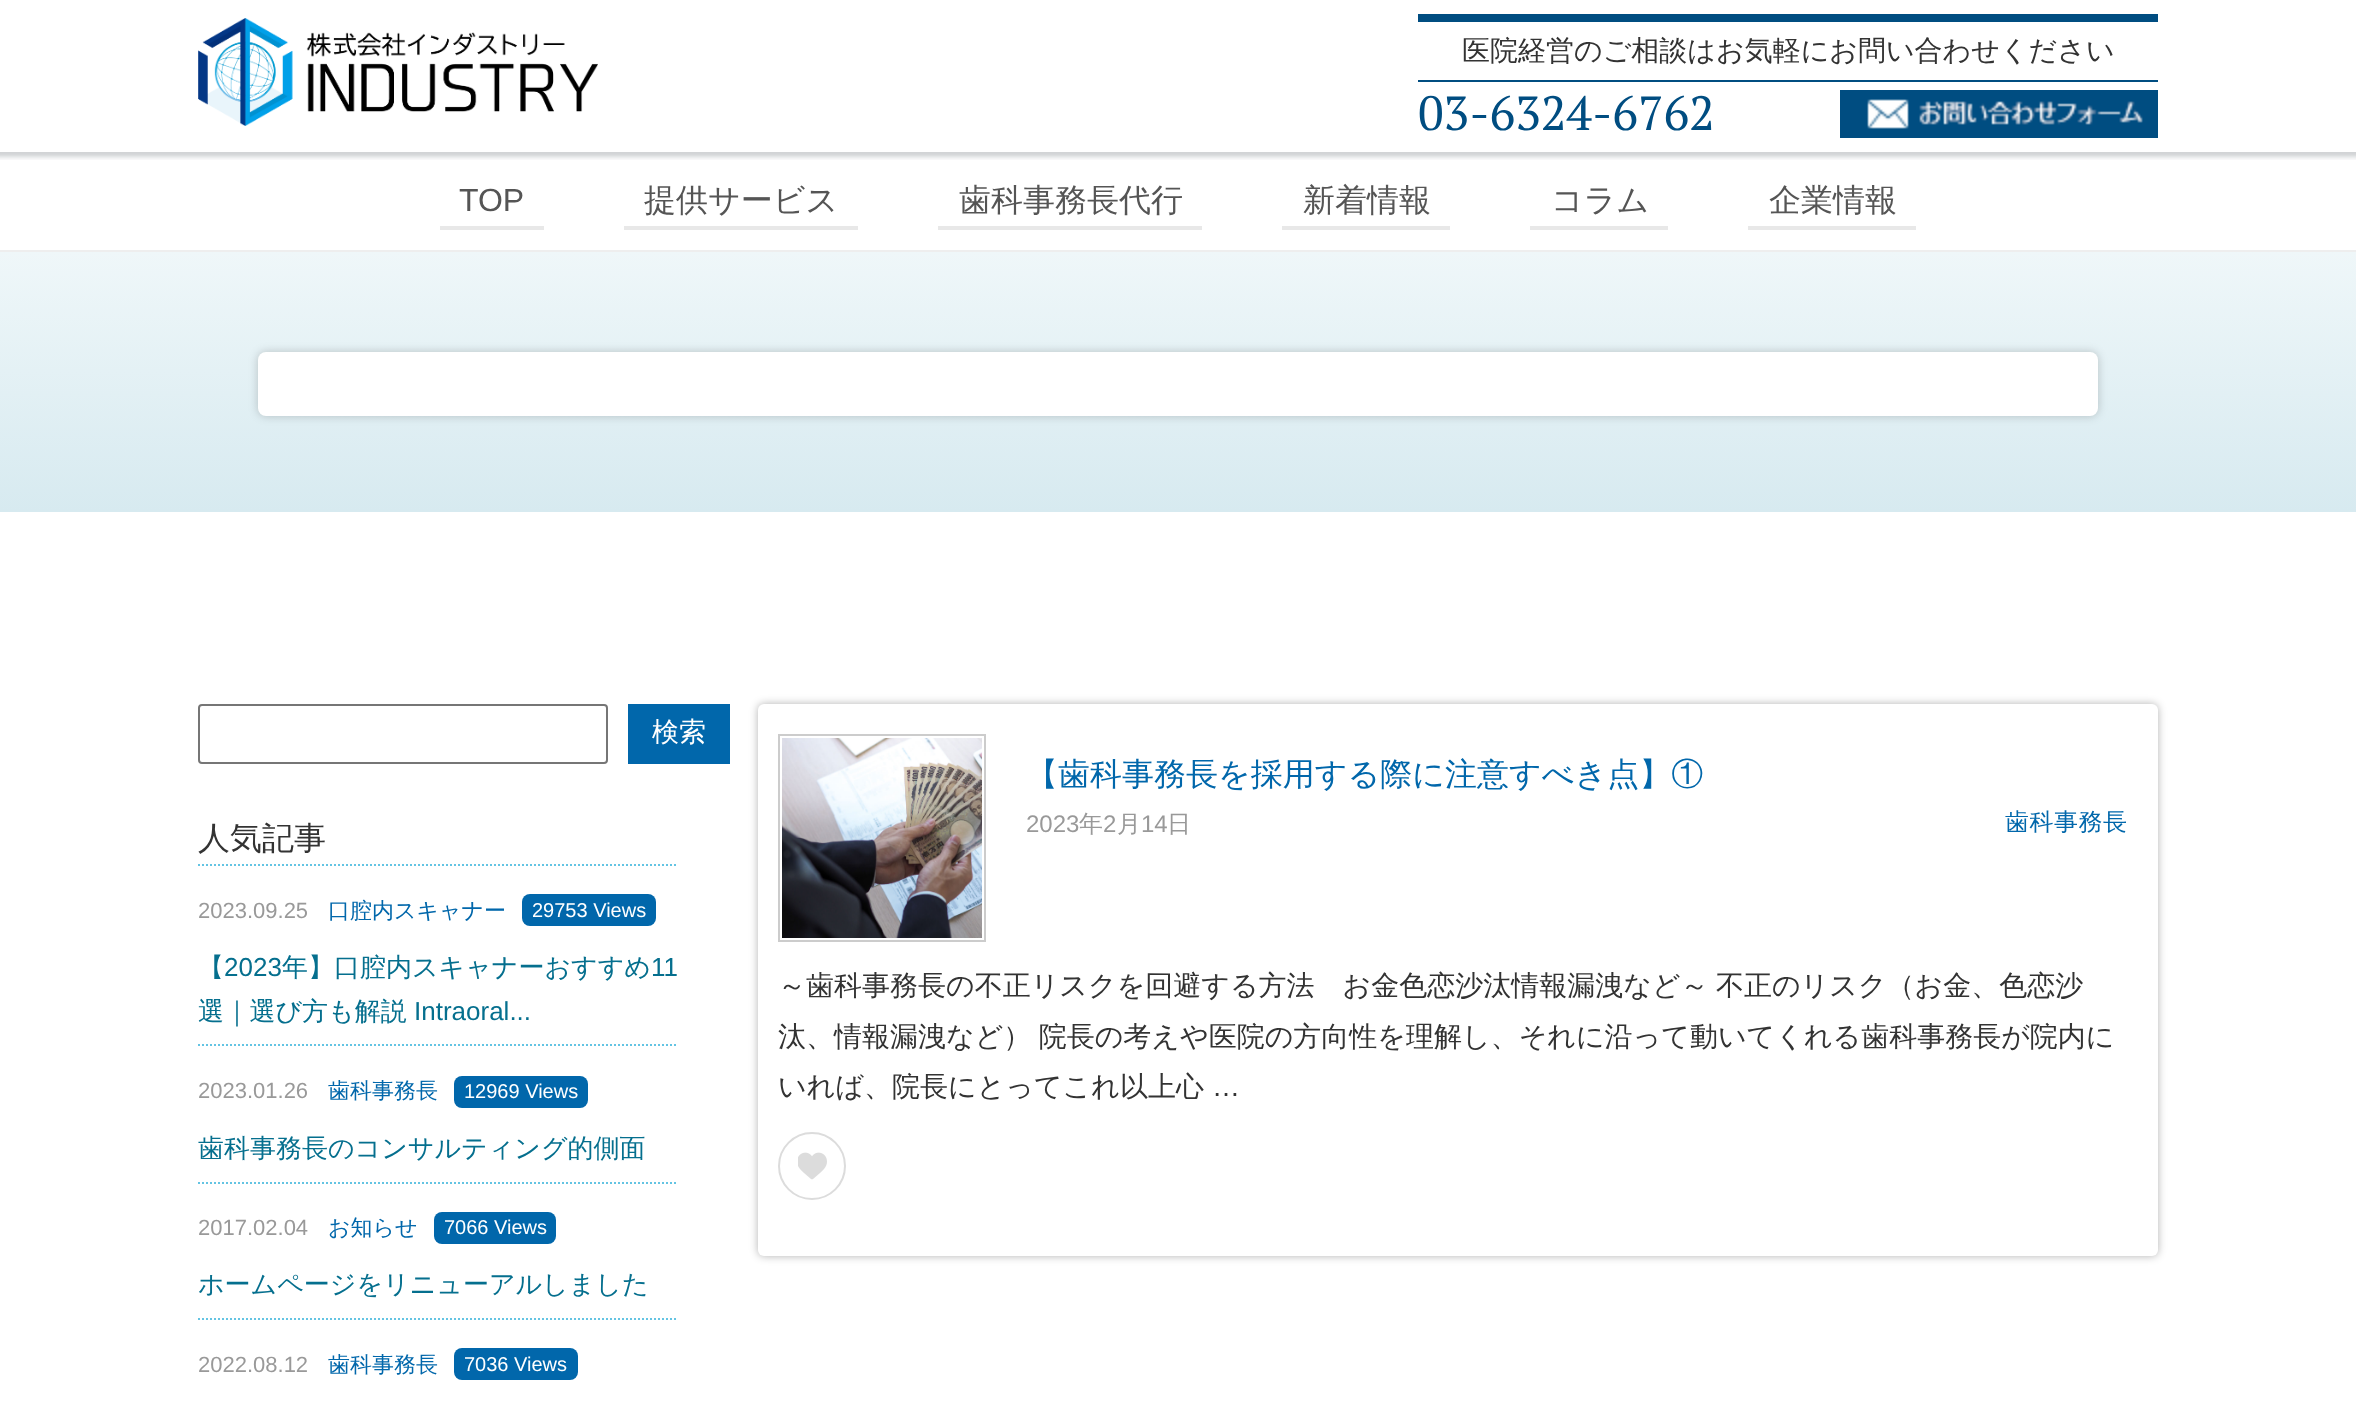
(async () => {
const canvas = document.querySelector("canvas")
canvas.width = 2356
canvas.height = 1425
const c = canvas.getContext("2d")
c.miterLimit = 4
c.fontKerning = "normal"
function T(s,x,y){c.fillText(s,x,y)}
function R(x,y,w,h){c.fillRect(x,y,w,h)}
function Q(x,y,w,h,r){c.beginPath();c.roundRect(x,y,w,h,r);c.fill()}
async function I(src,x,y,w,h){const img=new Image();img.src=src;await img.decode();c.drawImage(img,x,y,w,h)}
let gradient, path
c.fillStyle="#fff"
R(0,0,2356,1425)
await I("1.png",198,18,400,108)
c.fillStyle="#004d81"
R(1418,14,740,8)
R(1418,80,740,2)
c.font="500 28px WenQuanYi Zen Hei"
c.fillStyle="#333"
T("医院経営のご相談はお気軽にお問い合わせください",1462,60)
c.font="48px PT Serif"
c.fillStyle="#004d81"
T("03-6324-6762",1418,130)
await I("2.png",1840,90,318,48)
await I("3.png",0,152,2356,8)
c.fillStyle="#eee"
R(0,250,2356,2)
c.fillStyle="#e8e8e8"
R(440,226,104,4)
c.font="32px Liberation Sans"
c.fillStyle="#555"
T("TOP",459,211)
c.fillStyle="#e8e8e8"
R(624,226,234,4)
c.font="500 32px WenQuanYi Zen Hei"
c.fillStyle="#555"
T("提供サービス",644,211)
c.fillStyle="#e8e8e8"
R(938,226,264,4)
c.fillStyle="#555"
T("歯科事務長代行",959,211)
c.fillStyle="#e8e8e8"
R(1282,226,168,4)
c.fillStyle="#555"
T("新着情報",1303,211)
c.fillStyle="#e8e8e8"
R(1530,226,138,4)
c.fillStyle="#555"
T("コラム",1551,211)
c.fillStyle="#e8e8e8"
R(1748,226,168,4)
c.fillStyle="#555"
T("企業情報",1769,211)
gradient = c.createLinearGradient(1178,252,1178,512)
gradient.addColorStop(0,"#eff7f9")
gradient.addColorStop(1,"#d7eaf0")
c.fillStyle = gradient
R(0,252,2356,260)
c.fillStyle="#00000033"
c.filter="blur(5px)"
c.beginPath()
c.roundRect(258,352,1840,64,8)
c.fill()
c.filter="none"
c.fillStyle="#fff"
Q(258,352,1840,64,8)
c.beginPath()
c.roundRect(199,705,408,58,3)
c.strokeStyle="#767676"
c.lineWidth=2
c.stroke()
c.fillStyle="#0167ab"
R(628,704,102,60)
c.font="500 27px WenQuanYi Zen Hei"
c.fillStyle="#fff"
T("検索",652,741)
c.font="500 32px WenQuanYi Zen Hei"
c.fillStyle="#333"
T("人気記事",198,849)
path = new Path2D("M198 865h480")
c.strokeStyle="#64c4e3"
c.setLineDash([2,2])
c.stroke(path)
path = new Path2D("M198 1045h480")
c.stroke(path)
c.font="22px Liberation Sans"
c.fillStyle="#999"
T("2023.09.25",198,918)
c.font="500 22px WenQuanYi Zen Hei"
c.fillStyle="#0167ab"
T("口腔内スキャナー",328,918)
Q(522,894,134,32,8)
c.font="20px Liberation Sans"
c.fillStyle="#fff"
T("29753 Views",532,917)
c.font="500 26px WenQuanYi Zen Hei"
c.fillStyle="#056f8e"
T("【",198,976)
c.font="26px Liberation Sans"
T("2023",224,976)
c.font="500 26px WenQuanYi Zen Hei"
T("年】口腔内スキャナーおすすめ",282,976)
c.font="26px Liberation Sans"
T("11",651,976)
c.font="500 26px WenQuanYi Zen Hei"
T("選｜選び方も解説",198,1020)
c.font="26px Liberation Sans"
T("Intraoral...",414,1020)
path = new Path2D("M198 1183h480")
c.stroke(path)
c.font="22px Liberation Sans"
c.fillStyle="#999"
T("2023.01.26",198,1098)
c.font="500 22px WenQuanYi Zen Hei"
c.fillStyle="#0167ab"
T("歯科事務長",328,1098)
Q(454,1076,134,32,8)
c.font="20px Liberation Sans"
c.fillStyle="#fff"
T("12969 Views",464,1098)
c.font="500 26px WenQuanYi Zen Hei"
c.fillStyle="#056f8e"
T("歯科事務長のコンサルティング的側面",198,1157)
path = new Path2D("M198 1319h480")
c.stroke(path)
c.font="22px Liberation Sans"
c.fillStyle="#999"
T("2017.02.04",198,1235)
c.font="500 22px WenQuanYi Zen Hei"
c.fillStyle="#0167ab"
T("お知らせ",328,1235)
Q(434,1212,122,32,8)
c.font="20px Liberation Sans"
c.fillStyle="#fff"
T("7066 Views",444,1234)
c.font="500 26px WenQuanYi Zen Hei"
c.fillStyle="#056f8e"
T("ホームページをリニューアルしました",198,1293)
c.font="22px Liberation Sans"
c.fillStyle="#999"
T("2022.08.12",198,1372)
c.font="500 22px WenQuanYi Zen Hei"
c.fillStyle="#0167ab"
T("歯科事務長",328,1372)
Q(454,1348,124,32,8)
c.font="20px Liberation Sans"
c.fillStyle="#fff"
T("7036 Views",464,1371)
c.fillStyle="#0000004d"
c.filter="blur(4px)"
c.beginPath()
c.roundRect(758,704,1400,552,6)
c.fill()
c.filter="none"
c.fillStyle="#fff"
Q(758,704,1400,552,6)
c.strokeStyle="#ccc"
c.setLineDash([])
c.strokeRect(779,735,206,206)
await I("4.png",782,738,200,200)
c.font="500 32px WenQuanYi Zen Hei"
c.fillStyle="#0167ab"
T("【歯科事務長を採用する際に注意すべき点】①",1026,785)
c.font="24px Liberation Sans"
c.fillStyle="#999"
T("2023",1026,832)
c.font="500 24px WenQuanYi Zen Hei"
T("年",1079,832)
c.font="24px Liberation Sans"
T("2",1103,832)
c.font="500 24px WenQuanYi Zen Hei"
T("月",1117,832)
c.font="24px Liberation Sans"
T("14",1141,832)
c.font="500 24px WenQuanYi Zen Hei"
T("日",1167,832)
c.letterSpacing="0.5px"
c.fillStyle="#0167ab"
T("歯科事務長",2005,830)
c.letterSpacing="0px"
c.wordSpacing="-1px"
c.font="500 28px WenQuanYi Zen Hei"
c.fillStyle="#333"
T("～歯科事務長の不正リスクを回避する方法　お金色恋沙汰情報漏洩など～ 不正のリスク（お金、色恋沙",778,995)
T("汰、情報漏洩など） 院長の考えや医院の方向性を理解し、それに沿って動いてくれる歯科事務長が院内に",778,1046)
c.wordSpacing="0px"
T("いれば、院長にとってこれ以上心",778,1096)
c.font="28px Liberation Sans"
T("…",1212,1096)
c.beginPath()
c.arc(812,1166,33,0,7)
c.strokeStyle="#dcdcdc"
c.stroke()
await I("5.png",798,1152,29,28)
})()
